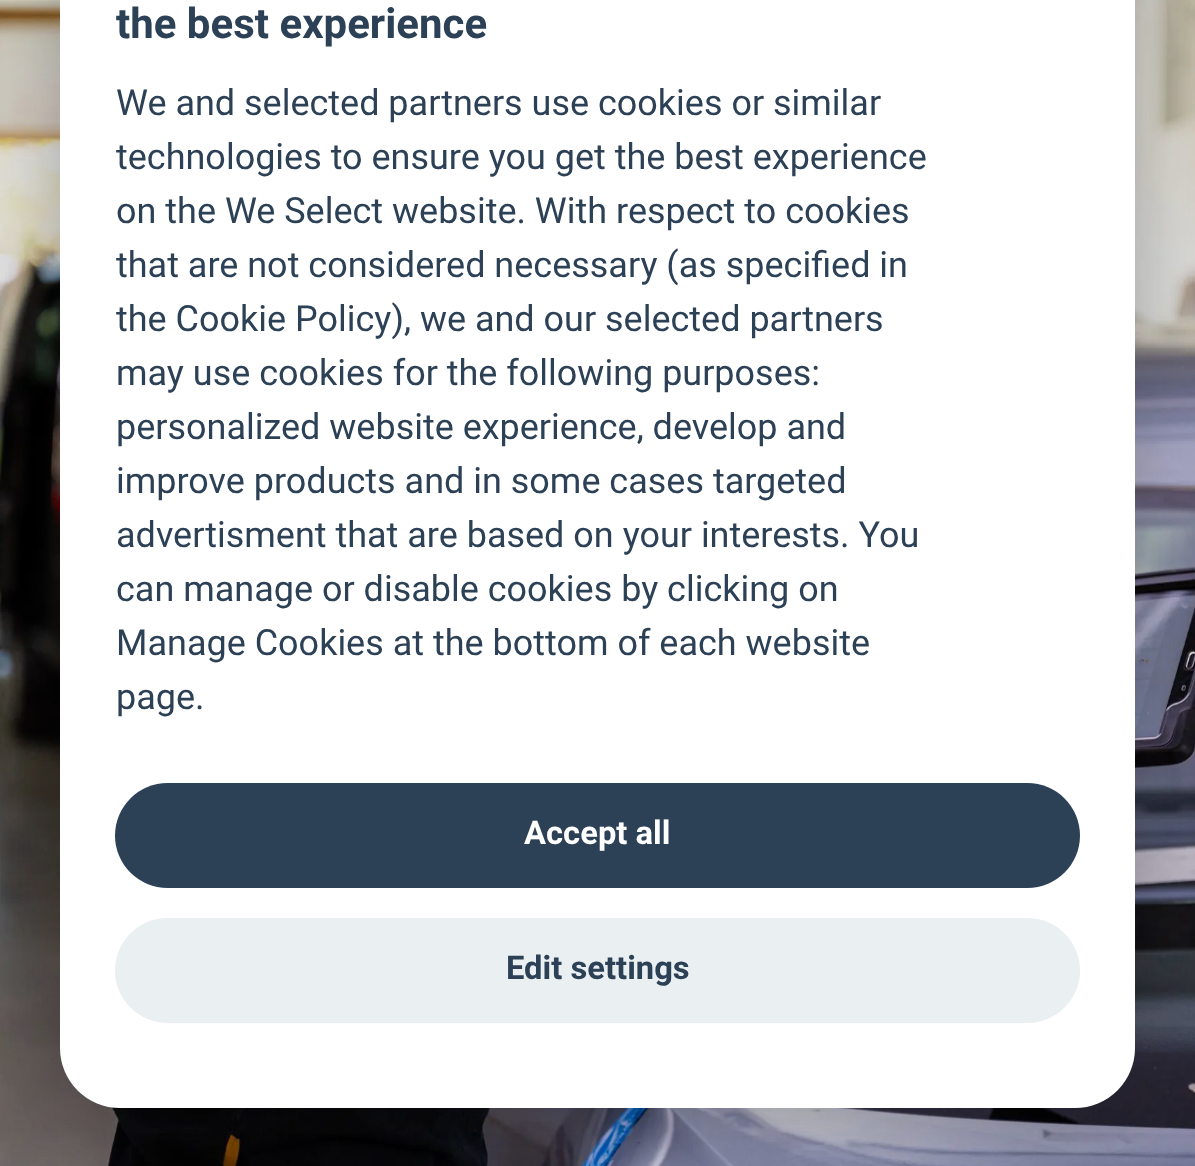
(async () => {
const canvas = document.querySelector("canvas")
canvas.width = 1195
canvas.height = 1166
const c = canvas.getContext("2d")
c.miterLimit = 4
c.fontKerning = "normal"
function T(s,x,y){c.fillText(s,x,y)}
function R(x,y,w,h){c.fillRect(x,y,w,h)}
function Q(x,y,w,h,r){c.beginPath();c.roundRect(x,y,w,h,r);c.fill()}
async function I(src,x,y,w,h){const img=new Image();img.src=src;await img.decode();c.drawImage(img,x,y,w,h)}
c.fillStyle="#fff"
R(0,0,1195,1166)
await I("1.png",0,0,1195,1166)
c.fillStyle="#02020347"
c.filter="blur(37.5px)"
c.beginPath()
c.roundRect(60,-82,1075,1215,60)
c.fill()
c.filter="none"
c.fillStyle="#fff"
Q(60,-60,1075,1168,60)
c.font="bold 42px Roboto"
c.fillStyle="#2d4156"
T("the best experience",116,38)
c.font="36px Roboto"
T("We and selected partners use cookies or similar",116,115)
T("technologies to ensure you get the best experience",116,169)
T("on the We Select website. With respect to cookies",116,223)
T("that are not considered necessary (as specified in",116,277)
T("the Cookie Policy), we and our selected partners",116,331)
T("may use cookies for the following purposes:",116,385)
T("personalized website experience, develop and",116,439)
T("improve products and in some cases targeted",116,493)
T("advertisment that are based on your interests. You",116,547)
T("can manage or disable cookies by clicking on",116,601)
T("Manage Cookies at the bottom of each website",116,655)
T("page.",116,709)
Q(115,783,965,105,52.5)
c.font="bold 32.75px Roboto"
c.fillStyle="#fff"
T("Accept all",524,844)
c.fillStyle="#eaeff2"
Q(115,918,965,105,52.5)
c.fillStyle="#2d4156"
T("Edit settings",506,979)
})()
